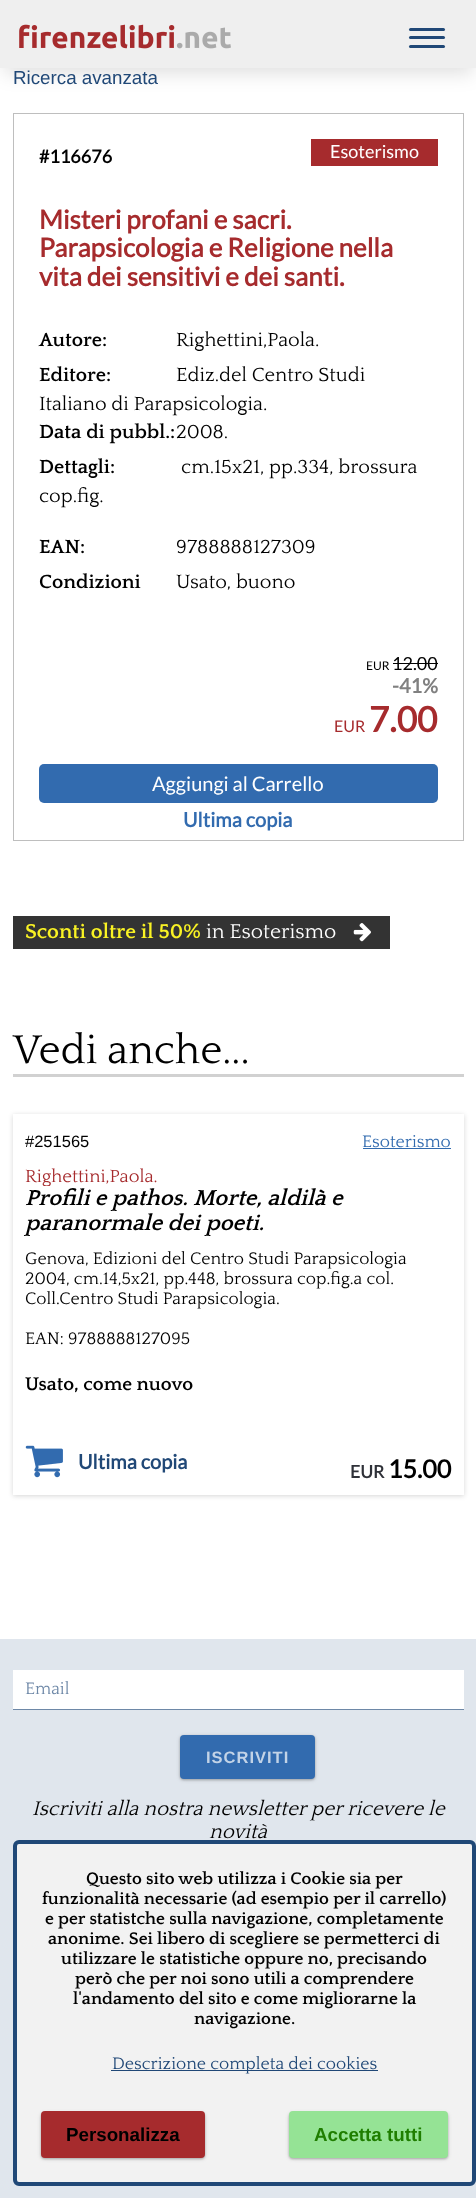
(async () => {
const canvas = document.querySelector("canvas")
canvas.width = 476
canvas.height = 2198
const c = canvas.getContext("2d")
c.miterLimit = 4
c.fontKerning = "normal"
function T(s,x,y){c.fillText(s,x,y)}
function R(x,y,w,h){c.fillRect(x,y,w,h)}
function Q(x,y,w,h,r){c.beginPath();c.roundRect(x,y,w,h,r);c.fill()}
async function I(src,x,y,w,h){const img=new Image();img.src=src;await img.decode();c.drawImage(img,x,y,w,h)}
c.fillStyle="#fff"
R(0,0,476,2198)
c.fillStyle="#00000021"
c.filter="blur(9.5px)"
c.beginPath()
c.rect(4,13,469,60)
c.fill()
c.filter="none"
c.fillStyle="#efefef"
R(0,0,476,68)
c.fillStyle="#204877"
Q(409,28,36,3,1.5)
Q(409,36,36,3,1.5)
Q(409,45,36,3,1.5)
await I("1.png",19,24,212,25)
c.font="18.75px Liberation Sans"
T("Ricerca avanzata",13,84)
c.strokeStyle="#bebebe"
c.strokeRect(13.5,113.5,450,727)
c.font="bold 18px Lato"
c.fillStyle="#000"
T("#116676",39,163)
c.fillStyle="#a62b2d"
R(311,139,127,27)
c.font="18px Lato"
c.fillStyle="#fff"
T("Esoterismo",330,158)
c.font="bold 26px Lato"
c.fillStyle="#a62b2d"
T("Misteri profani e sacri.",39,229)
T("Parapsicologia e Religione nella",39,257)
T("vita dei sensitivi e dei santi.",39,286)
c.font="bold 20px Quattrocento"
c.fillStyle="#000"
T("Autore:",39,346)
c.font="20px Quattrocento"
T("Righettini,Paola.",176,346)
c.font="bold 20px Quattrocento"
T("Editore:",39,381)
c.font="20px Quattrocento"
T("Ediz.del Centro Studi",176,381)
T("Italiano di Parapsicologia.",39,410)
c.font="bold 20px Quattrocento"
T("Data di pubbl.:",39,438)
c.font="20px Quattrocento"
T("2008.",176,438)
c.font="bold 20px Quattrocento"
T("Dettagli:",39,473)
c.font="20px Quattrocento"
T("cm.15x21, pp.334, brossura",181,473)
T("cop.fig.",39,502)
c.font="bold 20px Quattrocento"
T("EAN:",39,553)
c.font="20px Quattrocento"
T("9788888127309",176,553)
c.font="bold 20px Quattrocento"
T("Condizioni",39,588)
c.font="20px Quattrocento"
T("Usato, buono",176,588)
c.font="12px Lato"
T("EUR",366,670)
c.font="18px Lato"
T("12.00",392,670)
R(393,663,45,1)
c.font="bold 20px Lato"
c.fillStyle="#808080"
T("-41%",392,693)
c.font="16px Lato"
c.fillStyle="#a62b2d"
T("EUR",334,732)
c.font="bold 35px Lato"
T("7.00",369,732)
c.fillStyle="#326baf"
Q(39,764,399,39,5)
c.font="20px Lato"
c.fillStyle="#fff"
T("Aggiungi al Carrello",152,791)
c.font="bold 20px Lato"
c.fillStyle="#326baf"
T("Ultima copia",183,827)
c.fillStyle="#333"
R(13,916,377,33)
c.font="bold 21px Quattrocento"
c.fillStyle="#f9f224"
T("Sconti oltre il 50%",25,938)
c.font="21px Quattrocento"
c.fillStyle="#fff"
T("in Esoterismo",206,938)
await I("2.png",353,923,18,19)
c.fillStyle="#d1d1d1"
R(13,1074,451,3)
c.font="42px Quattrocento"
c.fillStyle="#000"
T("Vedi anche...",13,1063)
c.fillStyle="#00000029"
c.filter="blur(2.5px)"
c.beginPath()
c.rect(13,1115,451,381)
c.fill()
c.filter="none"
c.fillStyle="#fff"
R(13,1114,451,381)
c.font="16.5px Liberation Sans"
c.fillStyle="#000"
T("#251565",25,1147)
c.font="17.5px Quattrocento"
c.fillStyle="#326baf"
T("Esoterismo",362,1147)
R(363,1148,88,1)
c.save()
c.beginPath()
c.rect(25,1166,426,20)
c.clip()
c.font="18.5px Quattrocento"
c.fillStyle="#a62b2d"
T("Righettini,Paola.",25,1182)
c.restore()
c.font="italic bold 22.75px Quattrocento"
c.fillStyle="#000"
T("Profili e pathos. Morte, aldilà e",25,1205)
T("paranormale dei poeti.",25,1230)
c.font="17.5px Quattrocento"
T("Genova, Edizioni del Centro Studi Parapsicologia",25,1264)
T("2004, cm.14,5x21, pp.448, brossura cop.fig.a col.",25,1284)
T("Coll.Centro Studi Parapsicologia.",25,1304)
T("EAN: 9788888127095",25,1344)
c.font="bold 19.25px Quattrocento"
T("Usato, come nuovo",25,1390)
await I("3.png",25,1445,38,33)
c.font="bold 20px Lato"
c.fillStyle="#204877"
T("Ultima copia",78,1469)
c.font="bold 17.5px Lato"
c.fillStyle="#2f3138"
T("EUR",350,1478)
c.font="bold 25px Lato"
c.fillStyle="#000"
T("15.00",388,1478)
c.fillStyle="#e0e6ed"
R(0,1639,476,559)
c.fillStyle="#fff"
R(13,1670,451,39)
c.fillStyle="#6e88a7"
R(13,1709,451,1)
c.font="17.5px Quattrocento"
T("Email",25,1694)
c.fillStyle="#0000003d"
c.filter="blur(1px)"
c.beginPath()
c.roundRect(180,1736,135,44,4)
c.fill()
c.filter="none"
c.fillStyle="#0000001f"
c.filter="blur(2px)"
c.beginPath()
c.roundRect(180,1736,135,44,4)
c.fill()
c.filter="none"
c.fillStyle="#326baf"
Q(180,1735,135,44,4)
c.letterSpacing="1px"
c.font="bold 16.5px Liberation Sans"
c.fillStyle="#c2d3e7"
T("ISCRIVITI",206,1763)
c.letterSpacing="0px"
c.font="italic 20.75px Quattrocento"
c.fillStyle="#000"
T("Iscriviti alla nostra newsletter per ricevere le",32,1815)
T("novità",209,1838)
c.fillStyle="#f2f2f2"
c.beginPath()
c.roundRect(15,1842,459,342,4)
c.fill()
c.strokeStyle="#204877"
c.lineWidth=4
c.stroke()
c.font="bold 17.5px Quattrocento"
c.fillStyle="#000"
T("Questo sito web utilizza i Cookie sia per",86,1884)
T("funzionalità necessarie (ad esempio per il carrello)",42,1904)
T("e per statistche sulla navigazione, completamente",45,1924)
T("anonime. Sei libero di scegliere se permetterci di",48,1944)
T("utilizzare le statistiche oppure no, precisando",61,1964)
T("però che per noi sono utili a comprendere",75,1984)
T("l'andamento del sito e come migliorarne la",73,2004)
T("navigazione.",194,2024)
c.fillStyle="#204877"
R(111,2070,267,1)
c.font="17.5px Quattrocento"
T("Descrizione completa dei cookies",112,2069)
c.fillStyle="#0000003d"
c.filter="blur(1px)"
c.beginPath()
c.roundRect(41,2113,164,46,4)
c.fill()
c.filter="none"
c.fillStyle="#0000001f"
c.filter="blur(2px)"
c.beginPath()
c.roundRect(41,2113,164,46,4)
c.fill()
c.filter="none"
c.fillStyle="#a62b2d"
Q(41,2111,164,47,4)
c.font="bold 18.75px Liberation Sans"
c.fillStyle="#000"
T("Personalizza",66,2141)
c.fillStyle="#0000003d"
c.filter="blur(1px)"
c.beginPath()
c.roundRect(289,2113,159,46,4)
c.fill()
c.filter="none"
c.fillStyle="#0000001f"
c.filter="blur(2px)"
c.beginPath()
c.roundRect(289,2113,159,46,4)
c.fill()
c.filter="none"
c.fillStyle="#95e395"
Q(289,2111,159,47,4)
c.fillStyle="#1f7e00"
T("Accetta tutti",314,2141)
})()
